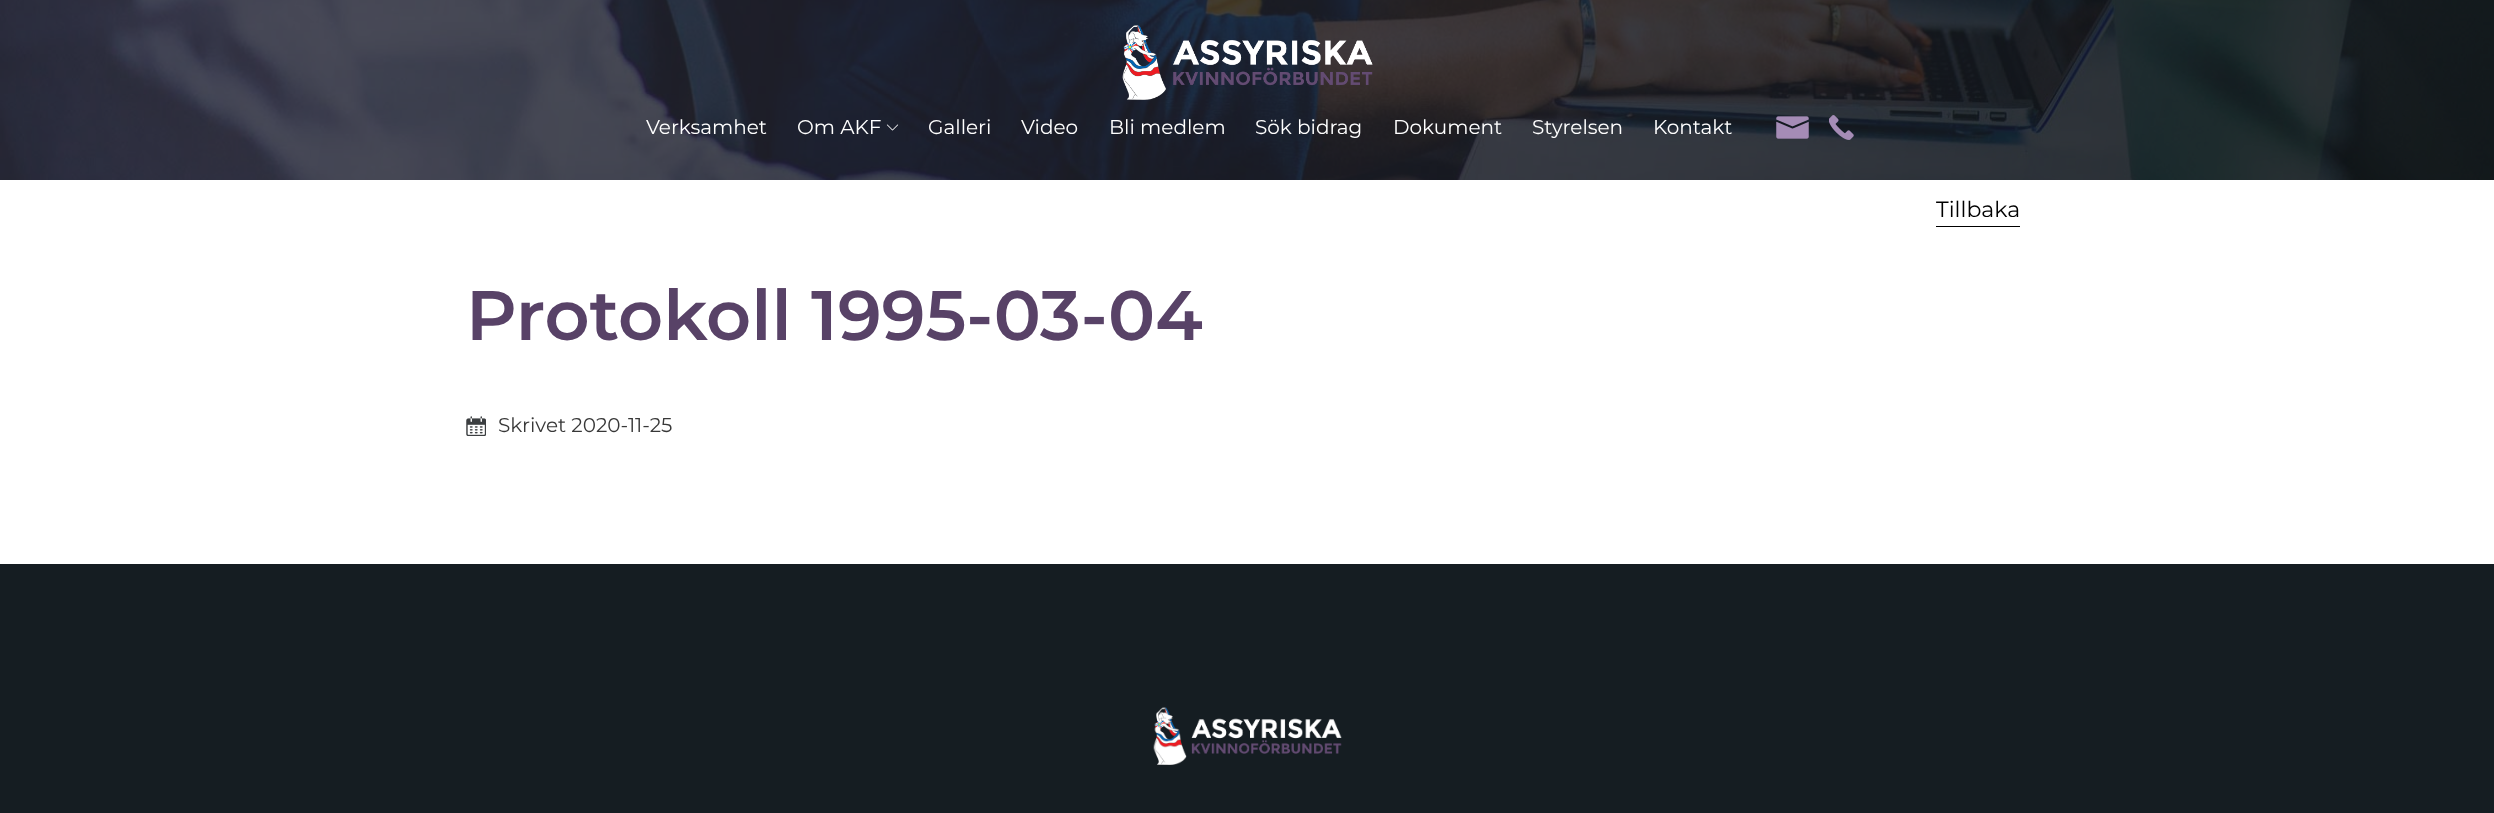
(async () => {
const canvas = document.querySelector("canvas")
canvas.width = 2494
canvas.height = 813
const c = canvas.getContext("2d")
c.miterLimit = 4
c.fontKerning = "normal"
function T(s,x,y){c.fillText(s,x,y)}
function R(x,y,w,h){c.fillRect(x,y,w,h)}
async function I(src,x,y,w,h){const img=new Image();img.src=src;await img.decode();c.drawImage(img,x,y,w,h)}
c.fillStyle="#fff"
R(0,0,2494,813)
await I("1.png",0,0,2494,180)
await I("2.png",1122,25,251,75)
c.font="20px Montserrat"
T("Verksamhet",646,134)
T("Om AKF",797,134)
await I("3.png",886,124,13,7)
T("Galleri",928,134)
T("Video",1021,134)
T("Bli medlem",1109,134)
T("Sök bidrag",1255,134)
T("Dokument",1393,134)
T("Styrelsen",1532,134)
T("Kontakt",1653,134)
await I("4.png",1776,116,33,23)
await I("5.png",1829,115,25,25)
c.fillStyle="#000"
R(1936,226,84,1)
c.font="22px Montserrat"
T("Tillbaka",1936,217)
c.font="600 70px Montserrat"
c.fillStyle="#584267"
T("Protokoll 1995-03-04",466,340)
await I("6.png",466,416,20,20)
c.font="20px Montserrat"
c.fillStyle="#383838"
T("Skrivet 2020-11-25",498,432)
c.fillStyle="#151d22"
R(0,564,2494,249)
await I("7.png",1153,707,189,58)
})()
